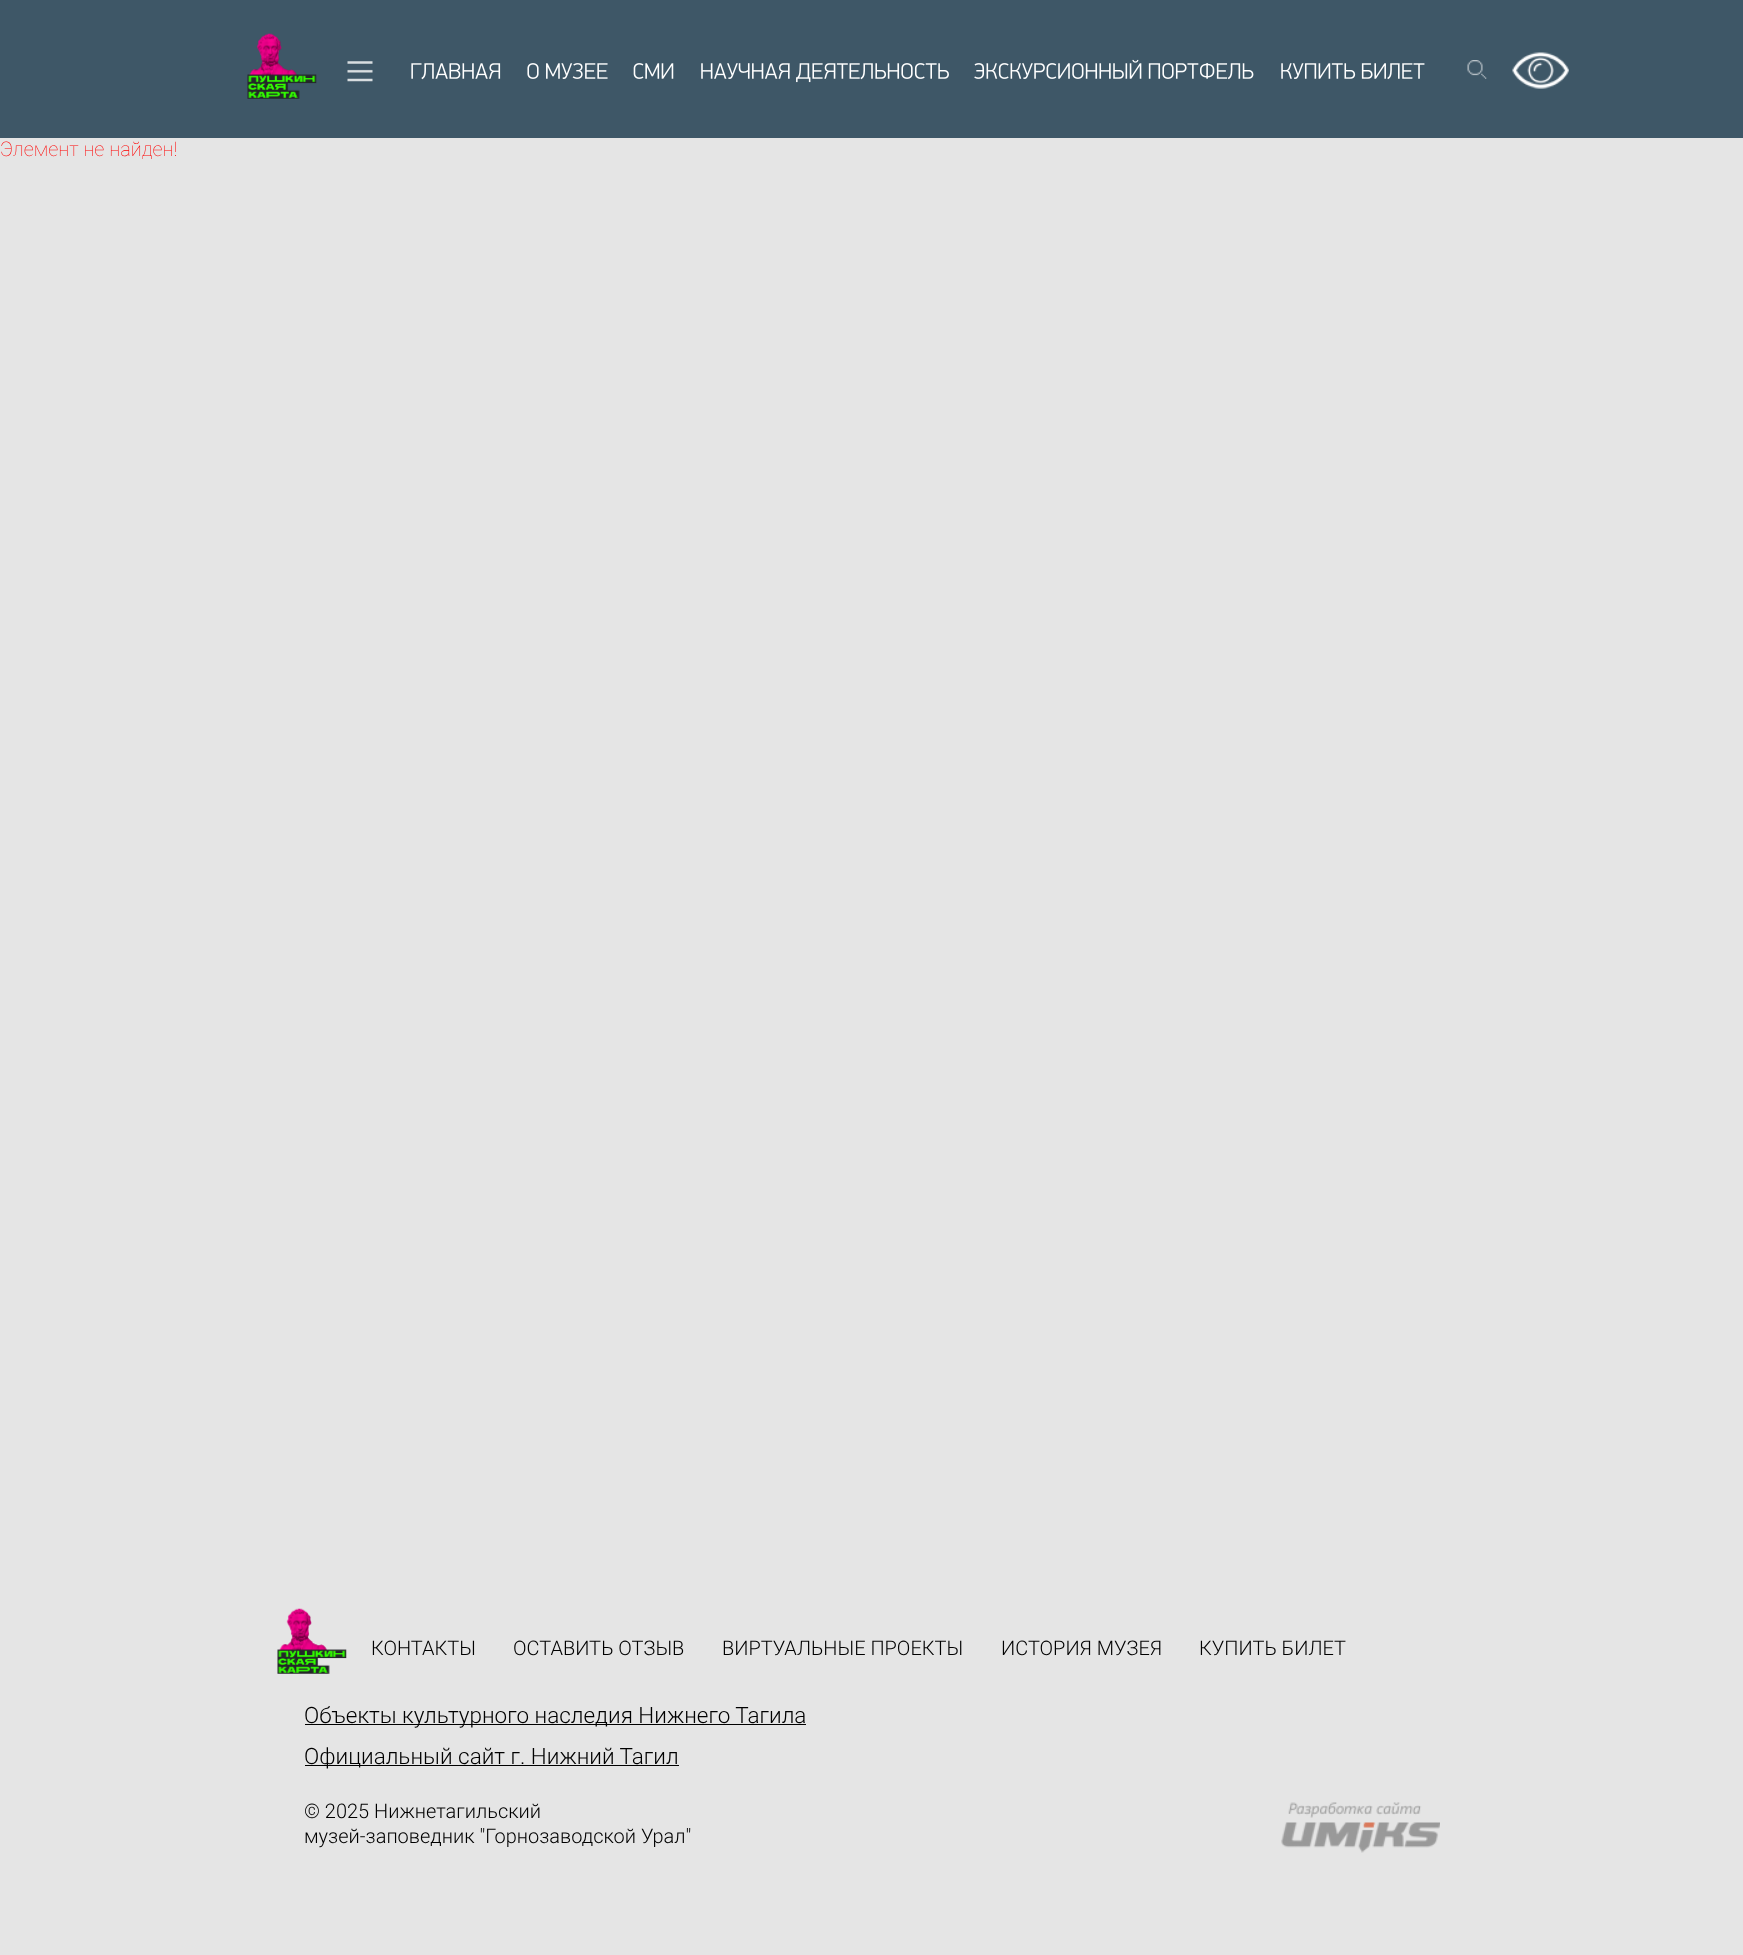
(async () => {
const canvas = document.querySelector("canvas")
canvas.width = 1743
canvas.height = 1955
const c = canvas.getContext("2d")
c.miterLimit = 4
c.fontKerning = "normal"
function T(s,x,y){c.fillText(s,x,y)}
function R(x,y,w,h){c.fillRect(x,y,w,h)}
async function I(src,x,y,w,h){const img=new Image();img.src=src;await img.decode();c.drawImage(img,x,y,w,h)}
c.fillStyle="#e5e5e5"
R(0,0,1743,1955)
c.fillStyle="#3e5767"
R(0,0,1743,138)
await I("1.png",247,33,70,66)
await I("2.png",347,61,26,21)
await I("3.png",411,63,90,17)
await I("4.png",527,63,81,16)
await I("5.png",633,63,41,16)
await I("6.png",701,63,248,20)
await I("7.png",974,59,280,21)
await I("8.png",1281,63,144,17)
await I("9.png",1467,60,20,19)
await I("10.png",1512,52,57,37)
c.font="100 20px Roboto"
c.fillStyle="#f00"
T("Элемент не найден!",0,156)
await I("11.png",277,1608,70,66)
c.font="300 20px Roboto"
c.fillStyle="#000"
T("КОНТАКТЫ",371,1655)
T("ОСТАВИТЬ ОТЗЫВ",513,1655)
T("ВИРТУАЛЬНЫЕ ПРОЕКТЫ",722,1655)
T("ИСТОРИЯ МУЗЕЯ",1001,1655)
T("КУПИТЬ БИЛЕТ",1199,1655)
R(305,1724,501,1)
c.font="300 22.5px Roboto"
T("Объекты культурного наследия Нижнего Тагила",304,1723)
R(305,1765,374,1)
T("Официальный сайт г. Нижний Тагил",304,1764)
c.font="300 20px Roboto"
T("© 2025 Нижнетагильский",304,1818)
T("музей-заповедник \"Горнозаводской Урал\"",304,1843)
await I("12.png",1281,1802,159,51)
})()
